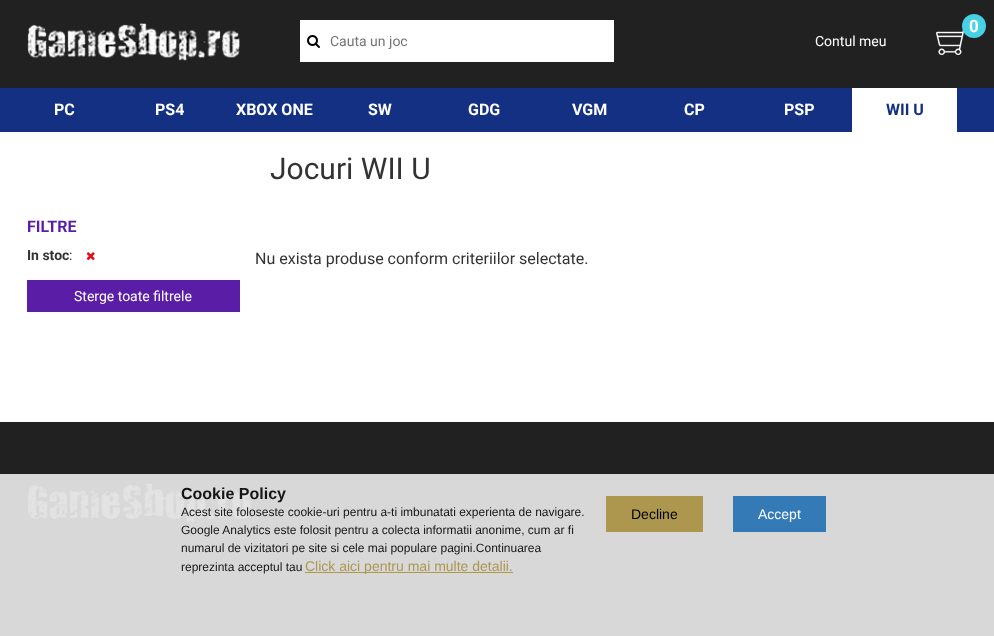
(async () => {
const canvas = document.querySelector("canvas")
canvas.width = 994
canvas.height = 636
const c = canvas.getContext("2d")
c.miterLimit = 4
c.fontKerning = "normal"
function T(s,x,y){c.fillText(s,x,y)}
function R(x,y,w,h){c.fillRect(x,y,w,h)}
async function I(src,x,y,w,h){const img=new Image();img.src=src;await img.decode();c.drawImage(img,x,y,w,h)}
c.fillStyle="#fff"
R(0,0,994,636)
c.fillStyle="#212121"
R(0,0,994,88)
await I("1.png",27,23,213,38)
c.fillStyle="#fff"
R(300,20,314,42)
await I("2.png",307,35,13,13)
c.font="14px Roboto"
c.fillStyle="#757575"
T("Cauta un joc",330,46)
c.fillStyle="#fff"
T("Contul meu",815,46)
await I("3.png",936,29,28,26)
c.fillStyle="#47d1e5"
c.beginPath()
c.arc(974,26,12,0,7)
c.fill()
c.font="bold 17px Roboto"
c.fillStyle="#fff"
T("0",969,32)
c.fillStyle="#143083"
R(0,88,994,44)
c.font="bold 16px Roboto"
c.fillStyle="#fff"
T("PC",54,115)
T("PS4",155,115)
T("XBOX ONE",236,115)
T("SW",368,115)
T("GDG",468,115)
T("VGM",572,115)
T("CP",684,115)
T("PSP",784,115)
R(852,88,105,44)
c.fillStyle="#143083"
T("WII U",886,115)
c.fillStyle="#5a1da6"
T("FILTRE",27,232)
c.font="bold 14px Roboto"
c.fillStyle="#333"
T("In stoc",27,260)
c.font="14px Roboto"
T(":",69,260)
await I("4.png",86,252,9,9)
c.fillStyle="#5a1da6"
R(27,280,213,32)
c.fillStyle="#fff"
T("Sterge toate filtrele",74,301)
c.font="30px Roboto"
c.fillStyle="#333"
T("Jocuri WII U",270,179)
c.font="16px Roboto"
T("Nu exista produse conform criteriilor selectate.",255,264)
c.fillStyle="#212121"
R(0,422,994,52)
c.fillStyle="#d8d8d8"
R(0,474,994,162)
await I("5.png",27,483,224,40)
c.font="bold 16px Liberation Sans"
c.fillStyle="#151515"
T("Cookie Policy",181,499)
c.font="12px Liberation Sans"
T("Acest site foloseste cookie-uri pentru a-ti imbunatati experienta de navigare.",181,516)
T("Google Analytics este folosit pentru a colecta informatii anonime, cum ar fi",181,534)
T("numarul de vizitatori pe site si cele mai populare pagini.Continuarea",181,552)
T("reprezinta acceptul tau",181,571)
c.fillStyle="#ad974f"
R(305,572,208,1)
c.font="14px Liberation Sans"
T("Click aici pentru mai multe detalii.",305,571)
R(606,496,97,36)
c.fillStyle="#000"
T("Decline",631,519)
c.fillStyle="#337ab7"
R(733,496,93,36)
c.fillStyle="#fff"
T("Accept",758,519)
})()
